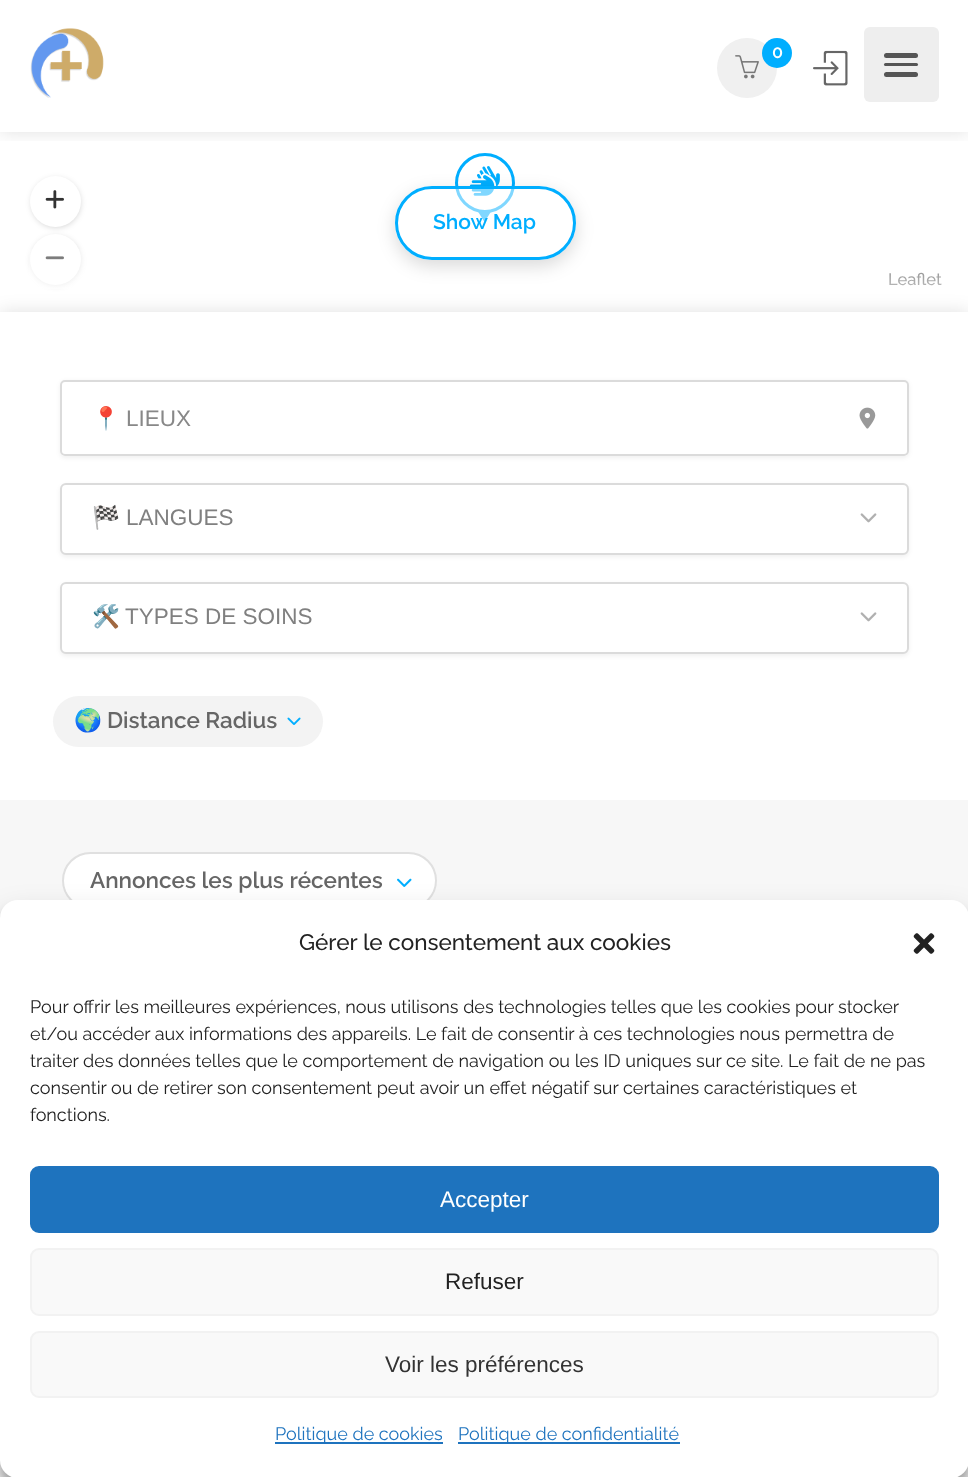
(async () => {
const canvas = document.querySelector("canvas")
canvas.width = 968
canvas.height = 1477
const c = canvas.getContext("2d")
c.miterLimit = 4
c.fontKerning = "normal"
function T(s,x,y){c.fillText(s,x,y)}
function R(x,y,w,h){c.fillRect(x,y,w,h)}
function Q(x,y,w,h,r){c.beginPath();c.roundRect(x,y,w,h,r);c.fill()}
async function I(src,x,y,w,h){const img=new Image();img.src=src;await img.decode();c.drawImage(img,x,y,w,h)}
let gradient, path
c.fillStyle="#fff"
R(0,0,968,1477)
c.fillStyle="#00aeff"
path = new Path2D("M477 210h15l-7.5 12z")
c.fill(path)
c.fillStyle="#fff"
c.beginPath()
c.arc(485,183,28.5,0,7)
c.fill()
c.strokeStyle="#00aeff"
c.lineWidth=3
c.stroke()
c.save()
c.beginPath()
c.rect(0,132,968,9)
c.clip()
c.fillStyle="#0000001f"
c.filter="blur(9px)"
c.beginPath()
c.rect(0,0,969,132)
c.fill()
c.filter="none"
c.restore()
await I("1.png",30,28,74,70)
c.fillStyle="#eee"
Q(864,27,75,75,6)
c.fillStyle="#555"
Q(884,72,34,5,2.5)
Q(884,53,34,5,2.5)
Q(884,63,34,3,1.5)
c.fillStyle="#f0f0f0"
c.beginPath()
c.arc(747,68,30,0,7)
c.fill()
c.fillStyle="#00aeff"
c.beginPath()
c.arc(777,53,15,0,7)
c.fill()
c.letterSpacing="-1px"
c.font="600 18px Raleway"
c.fillStyle="#fff"
T("0",772,58)
await I("2.png",735,55,24,24)
await I("3.png",813,50,35,36)
c.fillStyle="#00000033"
c.filter="blur(3px)"
c.beginPath()
c.roundRect(32,237,48,48,24)
c.fill()
c.filter="none"
c.filter="blur(3px)"
c.beginPath()
c.roundRect(32,179,48,48,24)
c.fill()
c.filter="none"
c.fillStyle="#fff"
c.beginPath()
c.arc(55.5,259.5,25.5,0,7)
c.fill()
await I("6.png",45,256,19,4)
c.letterSpacing="0px"
c.font="500 16.5px Raleway"
c.fillStyle="#333"
T("Leaflet",888,285)
gradient = c.createLinearGradient(485,222,485,312)
gradient.addColorStop(0,"#ffffff00")
gradient.addColorStop(1,"#ffffffe6")
c.fillStyle = gradient
R(29,249,913,40)
await I("4.png",469,166,31,30)
c.save()
path = new Path2D("M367 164h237v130h-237zm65 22h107c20.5 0 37 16.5 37 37c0 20.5-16.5 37-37 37h-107c-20.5 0-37-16.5-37-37c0-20.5 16.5-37 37-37z")
c.clip(path,"evenodd")
c.fillStyle="#00000026"
c.filter="blur(9px)"
c.beginPath()
c.roundRect(395,192,181,74,37)
c.fill()
c.filter="none"
c.restore()
c.fillStyle="#ffffff80"
c.beginPath()
c.roundRect(396.5,187.5,178,71,35.5)
c.fill()
c.stroke()
c.font="600 21px Raleway"
c.fillStyle="#00aeff"
T("Show Map",433,229)
c.fillStyle="#fff"
c.beginPath()
c.arc(55.5,201.5,25.5,0,7)
c.fill()
await I("5.png",45,190,19,19)
c.fillStyle="#0000001f"
c.filter="blur(9px)"
c.beginPath()
c.rect(0,312,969,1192)
c.fill()
c.filter="none"
c.fillStyle="#f7f7f7"
R(0,800,968,677)
c.fillStyle="#fff"
R(0,312,968,488)
c.save()
path = new Path2D("M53 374h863v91h-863zm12 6h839c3 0 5 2 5 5v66c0 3-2 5-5 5h-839c-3 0-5-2-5-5v-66c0-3 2-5 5-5z")
c.clip(path,"evenodd")
c.fillStyle="#0000000f"
c.filter="blur(2px)"
c.beginPath()
c.roundRect(60,381,849,77,5)
c.fill()
c.filter="none"
c.restore()
c.beginPath()
c.roundRect(61,381,847,74,4)
c.strokeStyle="#dbdbdb"
c.lineWidth=2
c.stroke()
c.save()
c.beginPath()
c.rect(92,405,786,27)
c.clip()
c.font="22.5px Noto Color Emoji"
c.fillStyle="#888"
T("📍",92,426)
c.restore()
c.font="22.5px Liberation Sans"
c.fillStyle="#888"
T("LIEUX",126,426)
await I("7.png",859,407,17,22)
c.fillStyle="#0000000f"
c.filter="blur(2px)"
c.beginPath()
c.roundRect(60,485,849,72,6)
c.fill()
c.filter="none"
c.fillStyle="#fff"
c.beginPath()
c.roundRect(61,484,847,70,5)
c.fill()
c.stroke()
c.save()
c.beginPath()
c.rect(92,482,300,72)
c.clip()
c.font="22.5px Noto Color Emoji"
c.fillStyle="#808080"
T("🏁",92,525)
c.restore()
c.fillStyle="#808080"
T("LANGUES",126,525)
await I("8.png",860,513,17,10)
c.fillStyle="#0000000f"
c.filter="blur(2px)"
c.beginPath()
c.roundRect(60,584,849,72,6)
c.fill()
c.filter="none"
c.fillStyle="#fff"
c.beginPath()
c.roundRect(61,583,847,70,5)
c.fill()
c.stroke()
c.save()
c.beginPath()
c.rect(92,581,300,72)
c.clip()
c.font="22.5px Noto Color Emoji"
c.fillStyle="#808080"
T("🛠️",92,624)
c.restore()
c.fillStyle="#808080"
T("TYPES DE SOINS",125,624)
await I("8.png",860,612,17,10)
c.fillStyle="#f3f3f3"
Q(53,696,270,51,25.5)
c.font="bold 22.5px Noto Color Emoji"
c.fillStyle="#666"
T("🌍",74,728)
c.font="600 22.5px Raleway"
T("Distance Radius",107,728)
await I("9.png",287,717,14,8)
c.fillStyle="#fff"
c.beginPath()
c.roundRect(63,853,373,55,27.5)
c.fill()
c.strokeStyle="#e0e0e0"
c.stroke()
c.fillStyle="#666"
T("Annonces les plus récentes",90,888)
await I("10.png",397,878,15,9)
c.fillStyle="#0000003b"
c.filter="blur(4.5px)"
c.beginPath()
c.roundRect(0,909,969,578,18)
c.fill()
c.filter="none"
c.fillStyle="#00000030"
c.filter="blur(15px)"
c.beginPath()
c.roundRect(0,915,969,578,18)
c.fill()
c.filter="none"
c.fillStyle="#fff"
Q(0,900,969,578,18)
c.font="500 22.5px Raleway"
c.fillStyle="#222"
T("Gérer le consentement aux cookies",299,950)
await I("11.png",913,933,22,21)
c.font="100 18px Raleway"
T("Pour offrir les meilleures expériences, nous utilisons des technologies telles que les cookies pour stocker",30,1013)
T("et/ou accéder aux informations des appareils. Le fait de consentir à ces technologies nous permettra de",30,1040)
T("traiter des données telles que le comportement de navigation ou les ID uniques sur ce site. Le fait de ne pas",30,1067)
T("consentir ou de retirer son consentement peut avoir un effet négatif sur certaines caractéristiques et",30,1094)
T("fonctions.",30,1121)
c.fillStyle="#1e73be"
c.beginPath()
c.roundRect(31,1167,907,65,8)
c.fill()
c.strokeStyle="#1e73be"
c.stroke()
c.font="22.5px Liberation Sans"
c.fillStyle="#fff"
T("Accepter",440,1207)
c.fillStyle="#f9f9f9"
c.beginPath()
c.roundRect(31,1249,907,66,8)
c.fill()
c.strokeStyle="#f2f2f2"
c.stroke()
c.fillStyle="#222"
T("Refuser",445,1289)
c.fillStyle="#f9f9f9"
c.beginPath()
c.roundRect(31,1332,907,65,8)
c.fill()
c.stroke()
c.fillStyle="#333"
T("Voir les préférences",385,1372)
c.fillStyle="#1e73be"
R(275,1442,168,2)
c.font="100 18px Raleway"
T("Politique de cookies",275,1440)
R(458,1442,222,2)
T("Politique de confidentialité",458,1440)
})()
